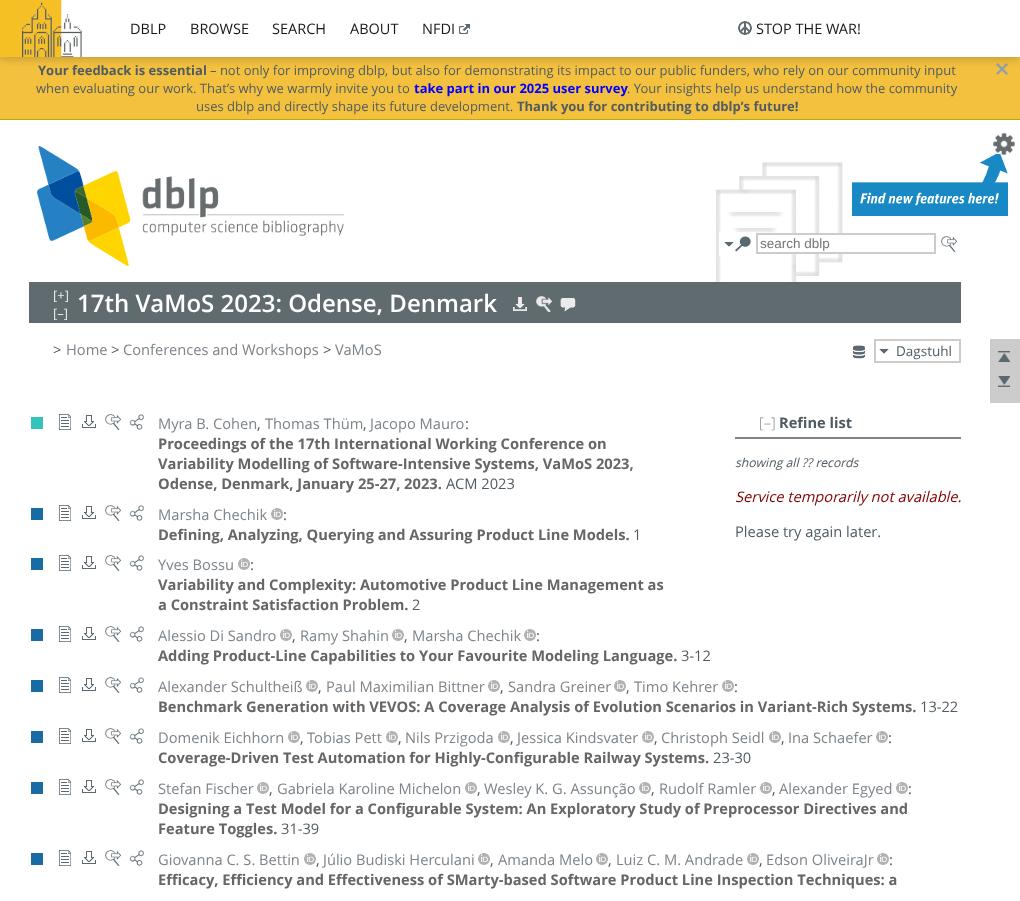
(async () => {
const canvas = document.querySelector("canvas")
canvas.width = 1020
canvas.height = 901
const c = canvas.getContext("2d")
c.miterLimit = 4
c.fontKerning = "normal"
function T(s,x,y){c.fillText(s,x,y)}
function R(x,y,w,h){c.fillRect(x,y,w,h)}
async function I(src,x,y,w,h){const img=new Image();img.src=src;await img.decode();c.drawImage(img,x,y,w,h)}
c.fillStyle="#f4c13f"
R(0,0,1020,901)
await I("4.png",996,63,12,12)
c.fillStyle="#00000033"
c.filter="blur(5px)"
c.beginPath()
c.rect(0,2,1020,57)
c.fill()
c.filter="none"
c.fillStyle="#fff"
R(82,0,938,57)
await I("1.png",0,0,82,57)
c.font="14.5px Open Sans"
c.fillStyle="#16181b"
T("DBLP",130,34)
T("BROWSE",190,34)
T("SEARCH",272,34)
T("ABOUT",350,34)
T("NFDI",422,34)
await I("2.png",458,24,12,10)
await I("3.png",738,21,14,14)
T("STOP THE WAR!",756,34)
c.fillStyle="#ba0"
R(0,119,1020,1)
c.font="bold 13px Open Sans"
c.fillStyle="#505b62"
T("Your feedback is essential",38,75)
c.font="13px Open Sans"
T("– not only for improving dblp, but also for demonstrating its impact to our public funders, who rely on our community input",210,75)
T("when evaluating our work. That’s why we warmly invite you to",36,93)
c.font="bold 13px Open Sans"
c.fillStyle="#00f"
T("take part in our 2025 user survey",414,93)
c.font="13px Open Sans"
c.fillStyle="#505b62"
T(". Your insights help us understand how the community",627,93)
T("uses dblp and directly shape its future development.",196,111)
c.font="bold 13px Open Sans"
T("Thank you for contributing to dblp’s future!",517,111)
c.fillStyle="#fff"
R(0,120,1020,781)
await I("5.png",716,162,127,120)
await I("6.png",37,146,308,120)
await I("8.png",852,154,156,62)
await I("7.png",993,133,22,22)
R(719,232,36,24)
await I("9.png",724,242,10,5)
await I("10.png",735,236,16,16)
R(791,235,52,17)
c.strokeStyle="#ccc"
c.lineWidth=2
c.strokeRect(757,234,178,19)
c.font="13.5px Liberation Sans"
c.fillStyle="#757575"
T("search dblp",760,248)
await I("11.png",941,236,16,16)
c.fillStyle="#606b70"
R(29,282,932,41)
c.font="13px Open Sans"
c.fillStyle="#ebebeb"
T("[+]",53,300)
T("[–]",53,318)
c.font="600 24px Open Sans"
c.fillStyle="#fff"
T("17th VaMoS 2023: Odense, Denmark",77,312)
await I("12.png",513,297,14,14)
await I("13.png",536,296,16,16)
await I("14.png",560,298,16,14)
c.font="14.67px Open Sans"
c.fillStyle="#505b62"
T(">",53,355)
c.fillStyle="#7d848a"
T("Home",66,355)
c.fillStyle="#505b62"
T(">",111,355)
c.fillStyle="#7d848a"
T("Conferences and Workshops",123,355)
c.fillStyle="#505b62"
T(">",323,355)
c.fillStyle="#7d848a"
T("VaMoS",335,355)
await I("15.png",853,345,12,14)
await I("9.png",879,349,10,5)
c.strokeRect(875,340,85,22)
c.font="13.5px Open Sans"
c.fillStyle="#505b62"
T("Dagstuhl",896,356)
c.fillStyle="#ccc"
R(990,339,30,64)
await I("16.png",998,351,12,11)
await I("17.png",998,376,12,11)
c.fillStyle="#7d848a"
R(735,437,226,2)
c.font="300 14.67px Open Sans"
T("[–]",759,428)
c.font="bold 14.67px Open Sans"
c.fillStyle="#505b62"
T("Refine list",779,428)
c.font="italic 12.25px Open Sans"
T("showing all ?? records",735,467)
c.font="italic 14.67px Open Sans"
c.fillStyle="#800000"
T("Service temporarily not available.",735,502)
c.font="14.67px Open Sans"
c.fillStyle="#505b62"
T("Please try again later.",735,537)
c.fillStyle="#33c3ba"
R(31,417,12,12)
await I("18.png",59,414,12,16)
await I("19.png",82,415,14,13)
await I("11.png",105,414,16,16)
await I("20.png",129,414,16,16)
c.fillStyle="#7d848a"
T("Myra B. Cohen",158,429)
c.fillStyle="#505b62"
T(",",257,429)
c.fillStyle="#7d848a"
T("Thomas Thüm",265,429)
c.fillStyle="#505b62"
T(",",363,429)
c.fillStyle="#7d848a"
T("Jacopo Mauro",370,429)
c.fillStyle="#505b62"
T(":",465,429)
c.font="bold 14.67px Open Sans"
c.fillStyle="#666"
T("Proceedings of the 17th International Working Conference on",158,449)
T("Variability Modelling of Software-Intensive Systems, VaMoS 2023,",158,469)
T("Odense, Denmark, January 25-27, 2023.",158,489)
c.font="14.67px Open Sans"
c.fillStyle="#505b62"
T("ACM 2023",446,489)
c.fillStyle="#196ca3"
R(31,508,12,12)
await I("18.png",59,505,12,16)
await I("19.png",82,506,14,13)
await I("11.png",105,505,16,16)
await I("20.png",129,505,16,16)
c.fillStyle="#7d848a"
T("Marsha Chechik",158,520)
await I("21.png",271,508,12,12)
c.fillStyle="#505b62"
T(":",283,520)
c.font="bold 14.67px Open Sans"
c.fillStyle="#666"
T("Defining, Analyzing, Querying and Assuring Product Line Models.",158,540)
c.font="14.67px Open Sans"
c.fillStyle="#505b62"
T("1",633,540)
c.fillStyle="#196ca3"
R(31,558,12,12)
await I("18.png",59,555,12,16)
await I("19.png",82,556,14,13)
await I("11.png",105,555,16,16)
await I("20.png",129,555,16,16)
c.fillStyle="#7d848a"
T("Yves Bossu",158,570)
await I("21.png",238,558,12,12)
c.fillStyle="#505b62"
T(":",250,570)
c.font="bold 14.67px Open Sans"
c.fillStyle="#666"
T("Variability and Complexity: Automotive Product Line Management as",158,590)
T("a Constraint Satisfaction Problem.",158,610)
c.font="14.67px Open Sans"
c.fillStyle="#505b62"
T("2",412,610)
c.fillStyle="#196ca3"
R(31,629,12,12)
await I("18.png",59,626,12,16)
await I("19.png",82,627,14,13)
await I("11.png",105,626,16,16)
await I("20.png",129,626,16,16)
c.fillStyle="#7d848a"
T("Alessio Di Sandro",158,641)
await I("21.png",280,629,12,12)
c.fillStyle="#505b62"
T(",",292,641)
c.fillStyle="#7d848a"
T("Ramy Shahin",300,641)
await I("21.png",392,629,12,12)
c.fillStyle="#505b62"
T(",",404,641)
c.fillStyle="#7d848a"
T("Marsha Chechik",412,641)
await I("21.png",524,629,12,12)
c.fillStyle="#505b62"
T(":",536,641)
c.font="bold 14.67px Open Sans"
c.fillStyle="#666"
T("Adding Product-Line Capabilities to Your Favourite Modeling Language.",158,661)
c.font="14.67px Open Sans"
c.fillStyle="#505b62"
T("3-12",681,661)
c.fillStyle="#196ca3"
R(31,680,12,12)
await I("18.png",59,677,12,16)
await I("19.png",82,678,14,13)
await I("11.png",105,677,16,16)
await I("20.png",129,677,16,16)
c.fillStyle="#7d848a"
T("Alexander Schultheiß",158,692)
await I("21.png",306,680,12,12)
c.fillStyle="#505b62"
T(",",318,692)
c.fillStyle="#7d848a"
T("Paul Maximilian Bittner",326,692)
await I("21.png",488,680,12,12)
c.fillStyle="#505b62"
T(",",500,692)
c.fillStyle="#7d848a"
T("Sandra Greiner",508,692)
await I("21.png",614,680,12,12)
c.fillStyle="#505b62"
T(",",626,692)
c.fillStyle="#7d848a"
T("Timo Kehrer",634,692)
await I("21.png",722,680,12,12)
c.fillStyle="#505b62"
T(":",734,692)
c.font="bold 14.67px Open Sans"
c.fillStyle="#666"
T("Benchmark Generation with VEVOS: A Coverage Analysis of Evolution Scenarios in Variant-Rich Systems.",158,712)
c.font="14.67px Open Sans"
c.fillStyle="#505b62"
T("13-22",920,712)
c.fillStyle="#196ca3"
R(31,731,12,12)
await I("18.png",59,728,12,16)
await I("19.png",82,729,14,13)
await I("11.png",105,728,16,16)
await I("20.png",129,728,16,16)
c.fillStyle="#7d848a"
T("Domenik Eichhorn",158,743)
await I("21.png",288,731,12,12)
c.fillStyle="#505b62"
T(",",300,743)
c.fillStyle="#7d848a"
T("Tobias Pett",307,743)
await I("21.png",386,731,12,12)
c.fillStyle="#505b62"
T(",",398,743)
c.fillStyle="#7d848a"
T("Nils Przigoda",405,743)
await I("21.png",498,731,12,12)
c.fillStyle="#505b62"
T(",",510,743)
c.fillStyle="#7d848a"
T("Jessica Kindsvater",517,743)
await I("21.png",642,731,12,12)
c.fillStyle="#505b62"
T(",",654,743)
c.fillStyle="#7d848a"
T("Christoph Seidl",661,743)
await I("21.png",769,731,12,12)
c.fillStyle="#505b62"
T(",",781,743)
c.fillStyle="#7d848a"
T("Ina Schaefer",788,743)
await I("21.png",876,731,12,12)
c.fillStyle="#505b62"
T(":",888,743)
c.font="bold 14.67px Open Sans"
c.fillStyle="#666"
T("Coverage-Driven Test Automation for Highly-Configurable Railway Systems.",158,763)
c.font="14.67px Open Sans"
c.fillStyle="#505b62"
T("23-30",713,763)
c.fillStyle="#196ca3"
R(31,782,12,12)
await I("18.png",59,779,12,16)
await I("19.png",82,780,14,13)
await I("11.png",105,779,16,16)
await I("20.png",129,779,16,16)
c.fillStyle="#7d848a"
T("Stefan Fischer",158,794)
await I("21.png",257,782,12,12)
c.fillStyle="#505b62"
T(",",269,794)
c.fillStyle="#7d848a"
T("Gabriela Karoline Michelon",277,794)
await I("21.png",465,782,12,12)
c.fillStyle="#505b62"
T(",",477,794)
c.fillStyle="#7d848a"
T("Wesley K. G. Assunção",484,794)
await I("21.png",639,782,12,12)
c.fillStyle="#505b62"
T(",",651,794)
c.fillStyle="#7d848a"
T("Rudolf Ramler",659,794)
await I("21.png",760,782,12,12)
c.fillStyle="#505b62"
T(",",772,794)
c.fillStyle="#7d848a"
T("Alexander Egyed",779,794)
await I("21.png",896,782,12,12)
c.fillStyle="#505b62"
T(":",908,794)
c.font="bold 14.67px Open Sans"
c.fillStyle="#666"
T("Designing a Test Model for a Configurable System: An Exploratory Study of Preprocessor Directives and",158,814)
T("Feature Toggles.",158,834)
c.font="14.67px Open Sans"
c.fillStyle="#505b62"
T("31-39",281,834)
c.fillStyle="#196ca3"
R(31,853,12,12)
await I("18.png",59,850,12,16)
await I("19.png",82,851,14,13)
await I("11.png",105,850,16,16)
await I("20.png",129,850,16,16)
c.fillStyle="#7d848a"
T("Giovanna C. S. Bettin",158,865)
await I("21.png",304,853,12,12)
c.fillStyle="#505b62"
T(",",316,865)
c.fillStyle="#7d848a"
T("Júlio Budiski Herculani",323,865)
await I("21.png",478,853,12,12)
c.fillStyle="#505b62"
T(",",490,865)
c.fillStyle="#7d848a"
T("Amanda Melo",498,865)
await I("21.png",596,853,12,12)
c.fillStyle="#505b62"
T(",",608,865)
c.fillStyle="#7d848a"
T("Luiz C. M. Andrade",616,865)
await I("21.png",747,853,12,12)
c.fillStyle="#505b62"
T(",",759,865)
c.fillStyle="#7d848a"
T("Edson OliveiraJr",766,865)
await I("21.png",877,853,12,12)
c.fillStyle="#505b62"
T(":",889,865)
c.font="bold 14.67px Open Sans"
c.fillStyle="#666"
T("Efficacy, Efficiency and Effectiveness of SMarty-based Software Product Line Inspection Techniques: a",158,885)
})()
